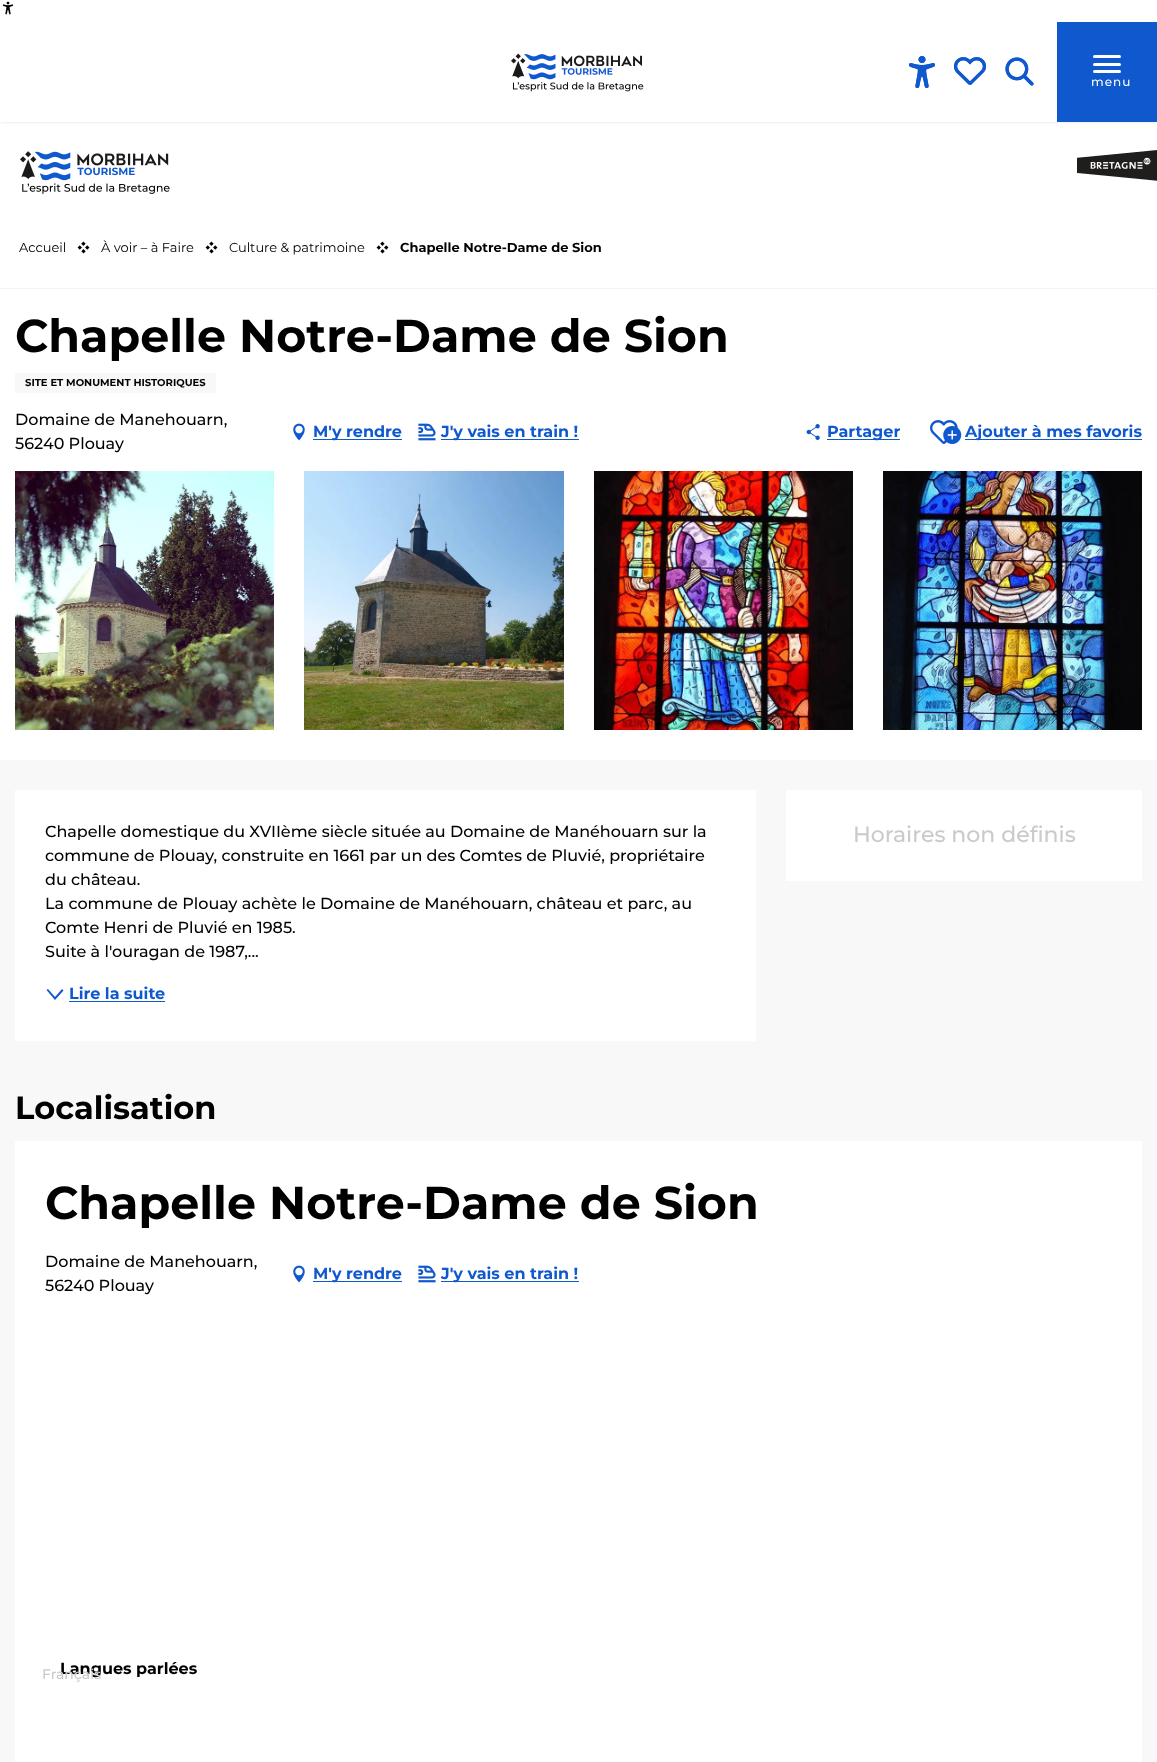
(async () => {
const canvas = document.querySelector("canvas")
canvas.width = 1157
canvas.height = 1762
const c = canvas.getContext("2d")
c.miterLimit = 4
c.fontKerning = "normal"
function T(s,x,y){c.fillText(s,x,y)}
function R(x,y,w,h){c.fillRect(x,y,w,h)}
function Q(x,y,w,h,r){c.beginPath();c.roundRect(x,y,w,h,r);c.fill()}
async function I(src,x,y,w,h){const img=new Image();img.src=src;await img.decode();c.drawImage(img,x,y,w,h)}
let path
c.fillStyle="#fff"
R(0,0,1157,1762)
c.save()
c.beginPath()
c.rect(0,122,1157,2)
c.clip()
c.fillStyle="#4b4b4b2e"
c.filter="blur(1.5px)"
c.beginPath()
c.rect(1,2,1155,120)
c.fill()
c.filter="none"
c.restore()
await I("1.png",2,1,12,14)
await I("2.png",511,53,133,39)
await I("3.png",909,56,26,32)
await I("4.png",909,56,26,32)
await I("5.png",954,57,32,28)
await I("6.png",954,57,32,28)
await I("7.png",1005,57,29,29)
await I("8.png",1005,57,29,29)
c.fillStyle="#0f58ce"
R(1057,22,100,100)
c.fillStyle="#fff"
Q(1093,55,28,3,1.5)
Q(1093,63,28,3,1.5)
Q(1093,70,28,3,1.5)
c.letterSpacing="1px"
c.font="500 12px Montserrat"
T("menu",1091,86)
await I("9.png",1077,150,80,31)
await I("10.png",20,151,150,43)
c.fillStyle="#f4f4f4"
R(0,288,1157,1)
c.letterSpacing="0px"
c.font="13px Montserrat"
c.fillStyle="#000"
T("Accueil",19,252)
await I("11.png",77,241,13,13)
T("À voir – à Faire",101,252)
await I("11.png",205,241,13,13)
T("Culture & patrimoine",229,252)
await I("11.png",376,241,13,13)
c.font="bold 13px Montserrat"
T("Chapelle Notre-Dame de Sion",400,252)
c.font="bold 46px Montserrat"
T("Chapelle Notre-Dame de Sion",15,352)
c.fillStyle="#f8f8f8"
R(15,373,201,20)
c.font="bold 10px Montserrat"
c.fillStyle="#000"
T("SITE ET MONUMENT HISTORIQUES",25,386)
c.font="500 16px Montserrat"
T("Domaine de Manehouarn,",15,425)
T("56240 Plouay",15,449)
await I("12.png",293,423,12,18)
c.fillStyle="#0f58ce"
R(313,439,89,1)
c.font="bold 16px Montserrat"
T("M'y rendre",313,437)
await I("13.png",418,423,18,18)
R(441,439,138,1)
T("J'y vais en train !",441,437)
await I("14.png",806,424,14,16)
R(827,439,73,1)
T("Partager",827,437)
await I("15.png",930,420,32,24)
R(965,439,177,1)
T("Ajouter à mes favoris",965,437)
await I("16.png",15,471,259,259)
await I("17.png",304,471,260,259)
await I("18.png",594,471,259,259)
await I("19.png",883,471,259,259)
c.fillStyle="#f8f8f8"
R(0,760,1157,1002)
c.fillStyle="#fff"
R(15,790,741,251)
c.font="500 16px Montserrat"
c.fillStyle="#000"
T("Chapelle domestique du XVIIème siècle située au Domaine de Manéhouarn sur la",45,837)
T("commune de Plouay, construite en 1661 par un des Comtes de Pluvié, propriétaire",45,861)
T("du château.",45,885)
T("La commune de Plouay achète le Domaine de Manéhouarn, château et parc, au",45,909)
T("Comte Henri de Pluvié en 1985.",45,933)
T("Suite à l'ouragan de 1987,...",45,957)
c.fillStyle="#0f58ce"
path = new Path2D("M48 989l-1.5 1l8.5 10l8.5-9.5l-1.5-1.5l-7 8z")
c.fill(path)
c.font="bold 16px Montserrat"
T("Lire la suite",69,999)
R(69,1001,96,1)
c.fillStyle="#fff"
R(786,790,356,91)
c.font="500 22px Montserrat"
c.fillStyle="#cacaca"
T("Horaires non définis",853,842)
c.font="bold 32px Montserrat"
c.fillStyle="#000"
T("Localisation",15,1119)
c.fillStyle="#fff"
R(15,1141,1127,621)
c.font="bold 46px Montserrat"
c.fillStyle="#000"
T("Chapelle Notre-Dame de Sion",45,1219)
c.font="500 16px Montserrat"
T("Domaine de Manehouarn,",45,1267)
T("56240 Plouay",45,1291)
await I("12.png",293,1265,12,18)
c.fillStyle="#0f58ce"
R(313,1281,89,1)
c.font="bold 16px Montserrat"
T("M'y rendre",313,1279)
await I("13.png",418,1265,18,18)
R(441,1281,138,1)
T("J'y vais en train !",441,1279)
c.fillStyle="#000"
T("Langues parlées",60,1674)
c.font="500 14px Montserrat"
c.fillStyle="#cacaca"
T("Français",42,1679)
})()
